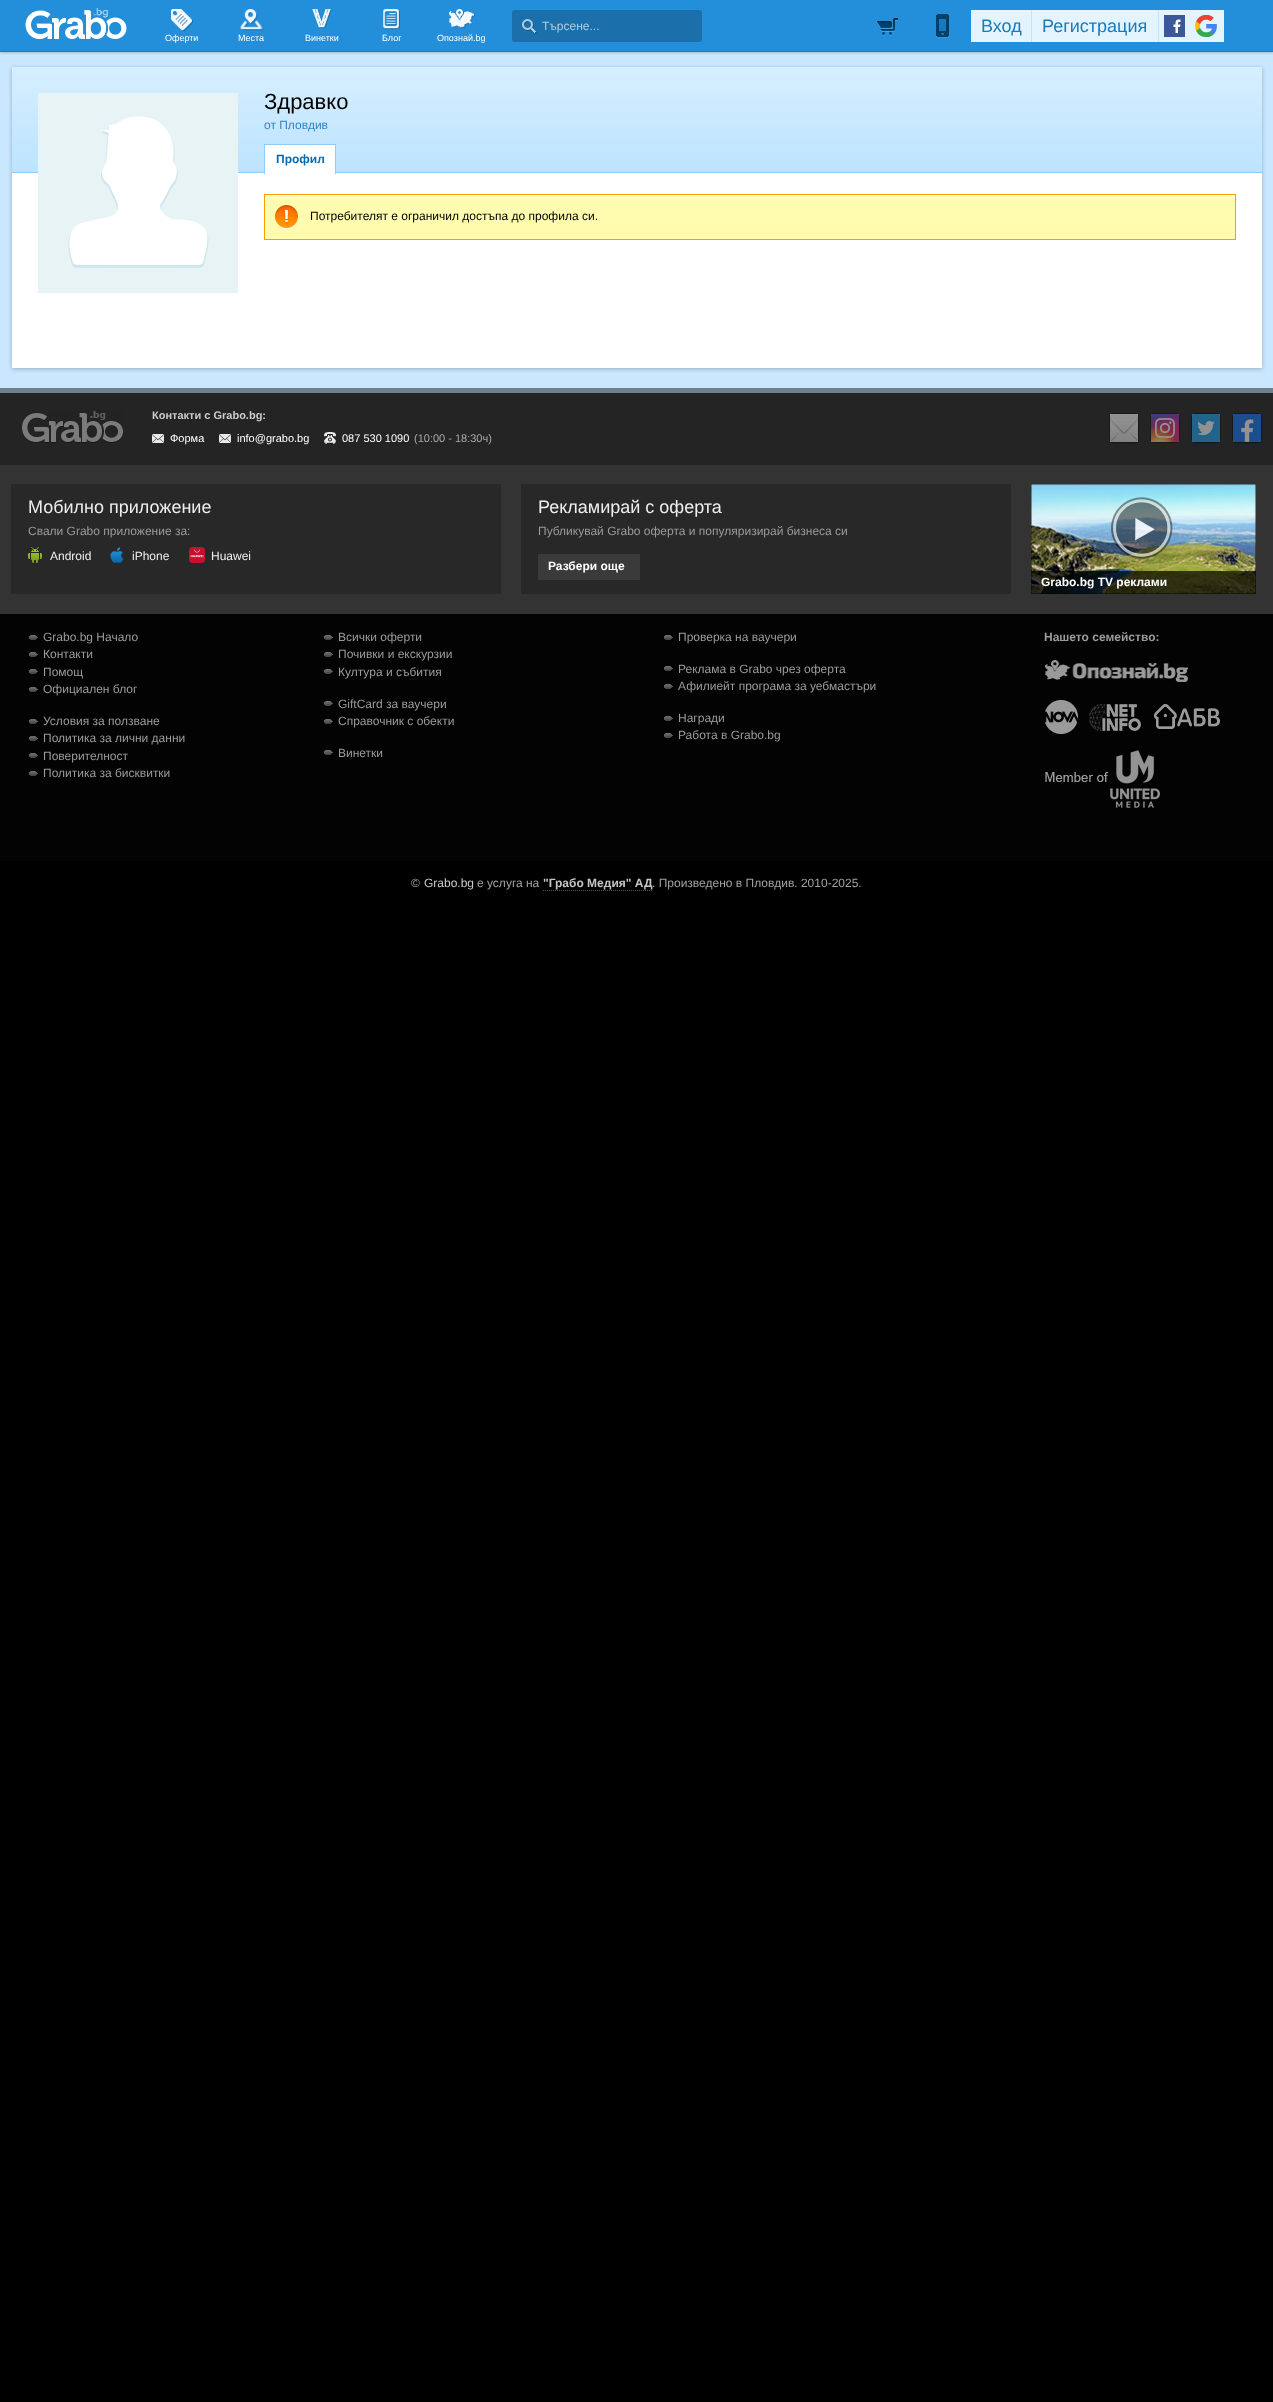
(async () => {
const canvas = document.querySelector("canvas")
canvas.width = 1273
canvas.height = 2402
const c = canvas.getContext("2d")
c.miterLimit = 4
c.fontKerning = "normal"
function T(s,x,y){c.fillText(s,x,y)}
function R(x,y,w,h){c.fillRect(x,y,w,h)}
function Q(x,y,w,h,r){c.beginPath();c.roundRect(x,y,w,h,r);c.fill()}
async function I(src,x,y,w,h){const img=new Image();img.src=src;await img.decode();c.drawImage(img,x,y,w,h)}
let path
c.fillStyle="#000"
R(0,0,1273,2402)
c.fillStyle="#c9e7ff"
R(0,52,1273,336)
c.fillStyle="#00000033"
c.filter="blur(1px)"
c.beginPath()
c.rect(0,1,1273,52)
c.fill()
c.filter="none"
c.fillStyle="#238fdb"
R(0,0,1273,51)
c.fillStyle="#197dc1"
R(0,51,1273,1)
await I("1.png",25,8,102,31)
c.fillStyle="#1b70ab"
Q(512,10,190,32,3)
await I("2.png",522,19,15,15)
c.font="12px Liberation Sans"
c.fillStyle="#afcde2"
T("Търсене...",542,30)
await I("3.png",171,9,22,23)
c.font="9px Liberation Sans"
c.fillStyle="#fff"
T("Оферти",165,41)
await I("4.png",239,9,25,22)
T("Места",238,41)
await I("5.png",312,9,20,20)
T("Винетки",305,41)
await I("6.png",383,9,17,21)
T("Блог",382,41)
await I("7.png",449,9,26,20)
T("Опознай.bg",437,41)
await I("8.png",877,18,21,18)
await I("9.png",936,14,13,24)
c.fillStyle="#c2e6fd"
R(1031,10,1,32)
R(1158,10,1,32)
c.fillStyle="#e3f4ff"
R(1159,10,65,32)
await I("10.png",1195,15,22,22)
R(971,10,60,32)
c.font="18px Liberation Sans"
c.fillStyle="#167bbf"
T("Вход",981,32)
c.fillStyle="#e3f4ff"
R(1032,10,126,32)
c.fillStyle="#167bbf"
T("Регистрация",1042,32)
await I("11.png",1164,15,21,22)
c.fillStyle="#6f7f8c"
R(0,388,1273,5)
c.fillStyle="#00000040"
c.filter="blur(2px)"
c.beginPath()
c.rect(12,68,1250,301)
c.fill()
c.filter="none"
c.fillStyle="#d4eeff"
R(12,67,1250,10)
c.fillStyle="#fff"
R(12,173,1250,195)
await I("12.png",12,77,1250,96)
await I("13.png",38,93,200,200)
c.font="22px Liberation Sans"
c.fillStyle="#000"
T("Здравко",264,109)
c.font="12px Liberation Sans"
c.fillStyle="#3386c0"
T("от Пловдив",264,129)
c.fillStyle="#fff"
R(265,145,70,28)
c.fillStyle="#90ccf5"
R(264,144,72,1)
R(335,144,1,30)
R(264,144,1,30)
c.font="bold 12px Liberation Sans"
c.fillStyle="#076aae"
T("Профил",276,163)
c.fillStyle="#fffcb0"
R(265,200,970,39)
await I("14.png",265,195,970,5)
c.strokeStyle="#ff9c00"
c.strokeRect(264.5,194.5,971,45)
await I("15.png",275,205,23,24)
c.font="12px Liberation Sans"
c.fillStyle="#000"
T("Потребителят е ограничил достъпа до профила си.",310,220)
c.fillStyle="#242424"
R(0,393,1273,72)
await I("16.png",22,411,101,32)
c.font="bold 11px Liberation Sans"
c.fillStyle="#ccc"
T("Контакти с Grabo.bg:",152,419)
await I("17.png",152,434,12,9)
c.font="11px Liberation Sans"
c.fillStyle="#fff"
T("Форма",170,442)
await I("17.png",219,434,12,9)
T("info@grabo.bg",237,442)
await I("18.png",324,432,12,12)
T("087 530 1090",342,442)
c.fillStyle="#aaa"
T("(10:00 - 18:30ч)",414,442)
await I("19.png",1109,413,30,31)
await I("20.png",1150,413,30,30)
await I("21.png",1191,413,30,31)
await I("22.png",1232,413,30,31)
c.fillStyle="#333"
R(0,465,1273,149)
c.fillStyle="#282828"
R(11,484,490,110)
c.font="18px Liberation Sans"
c.fillStyle="#eee"
T("Мобилно приложение",28,513)
c.font="12px Liberation Sans"
c.fillStyle="#9b9b9b"
T("Свали Grabo приложение за:",28,535)
await I("23.png",28,547,14,16)
c.fillStyle="#eee"
T("Android",50,560)
await I("24.png",110,547,14,16)
T("iPhone",132,560)
await I("25.png",189,547,16,16)
T("Huawei",211,560)
c.fillStyle="#282828"
R(521,484,490,110)
c.font="18px Liberation Sans"
c.fillStyle="#eee"
T("Рекламирай с оферта",538,513)
c.font="12px Liberation Sans"
c.fillStyle="#9b9b9b"
T("Публикувай Grabo оферта и популяризирай бизнеса си",538,535)
c.fillStyle="#3a3a3a"
R(538,554,102,26)
c.font="bold 12px Liberation Sans"
c.fillStyle="#fff"
T("Разбери още",548,570)
await I("26.png",1031,484,225,110)
c.fillStyle="#00000066"
R(1031,593,225,1)
R(1031,484,225,1)
R(1255,484,1,110)
R(1031,484,1,110)
await I("27.png",1111,497,62,62)
c.fillStyle="#000000b3"
R(1031,571,225,23)
c.fillStyle="#fff"
T("Grabo.bg TV реклами",1041,586)
c.fillStyle="#030303"
R(0,614,1273,247)
await I("28.png",29,635,9,5)
c.font="12px Liberation Sans"
c.fillStyle="#9b9b9b"
T("Grabo.bg Начало",43,641)
await I("28.png",29,652,9,5)
T("Контакти",43,658)
await I("28.png",29,669,9,5)
T("Помощ",43,676)
await I("28.png",29,687,9,5)
T("Официален блог",43,693)
await I("28.png",29,719,9,5)
T("Условия за ползване",43,725)
await I("28.png",29,736,9,5)
T("Политика за лични данни",43,742)
await I("28.png",29,753,9,5)
T("Поверителност",43,760)
await I("28.png",29,771,9,5)
T("Политика за бисквитки",43,777)
await I("28.png",324,635,9,5)
T("Всички оферти",338,641)
await I("28.png",324,652,9,5)
T("Почивки и екскурзии",338,658)
await I("28.png",324,669,9,5)
T("Култура и събития",338,676)
await I("28.png",324,701,9,5)
T("GiftCard за ваучери",338,708)
await I("28.png",324,719,9,5)
T("Справочник с обекти",338,725)
await I("28.png",324,750,9,5)
T("Винетки",338,757)
await I("28.png",664,635,9,5)
T("Проверка на ваучери",678,641)
await I("28.png",664,666,9,5)
T("Реклама в Grabo чрез оферта",678,673)
await I("28.png",664,684,9,5)
T("Афилиейт програма за уебмастъри",678,690)
await I("28.png",664,716,9,5)
T("Награди",678,722)
await I("28.png",664,733,9,5)
T("Работа в Grabo.bg",678,739)
c.font="bold 12px Liberation Sans"
T("Нашето семейство:",1044,641)
await I("29.png",1045,660,143,22)
await I("30.png",1045,700,33,34)
await I("31.png",1089,704,52,27)
await I("32.png",1154,704,66,25)
await I("33.png",1045,750,115,58)
c.font="12px Liberation Sans"
c.fillStyle="#a2a2a2"
T("©",411,887)
c.fillStyle="#ccc"
T("Grabo.bg",424,887)
c.fillStyle="#a2a2a2"
T("е услуга на",477,887)
c.font="bold 12px Liberation Sans"
c.fillStyle="#c5c5c5"
T("\"Грабо Медия\" АД",543,887)
path = new Path2D("M543 890.5h109")
c.strokeStyle="#575757"
c.setLineDash([1,1])
c.stroke(path)
c.font="12px Liberation Sans"
c.fillStyle="#a2a2a2"
T(". Произведено в Пловдив. 2010-2025.",652,887)
})()
